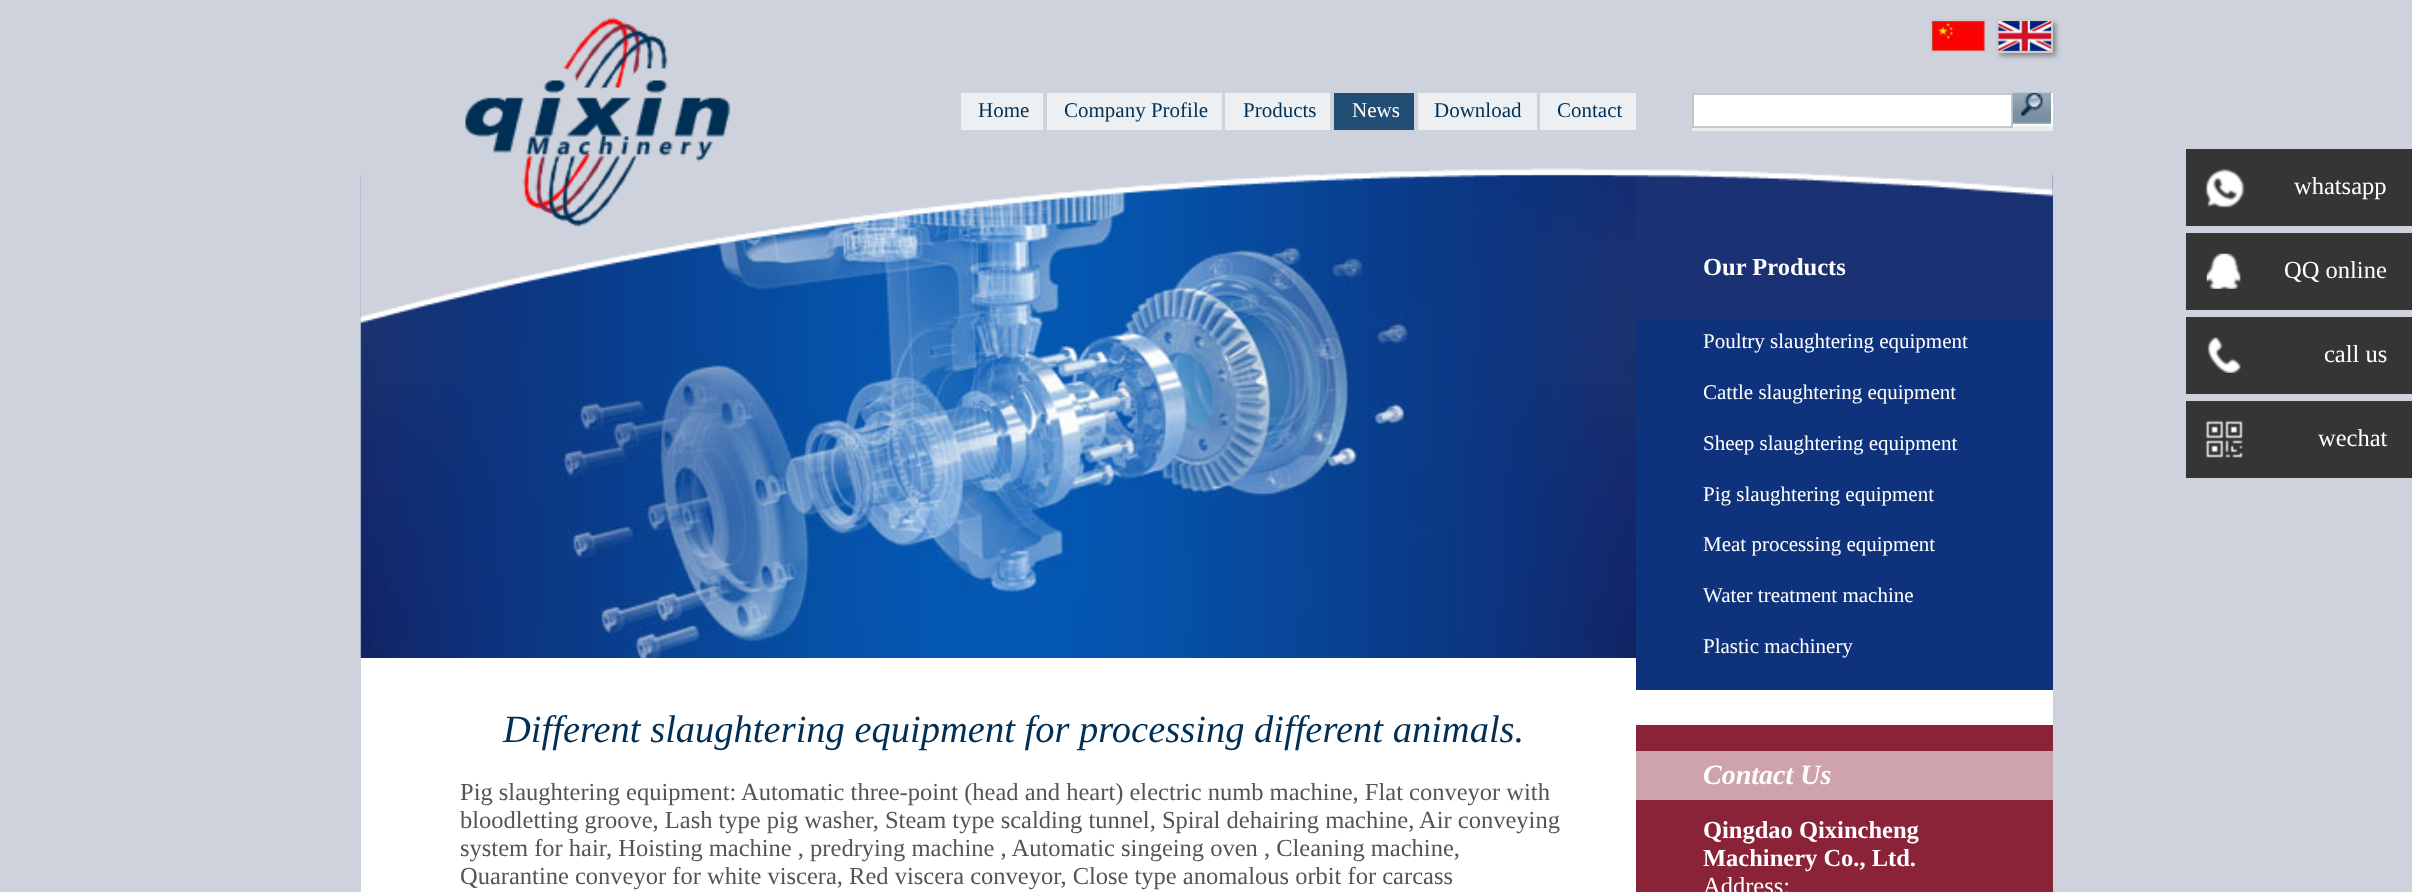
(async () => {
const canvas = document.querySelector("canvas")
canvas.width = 2412
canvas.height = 892
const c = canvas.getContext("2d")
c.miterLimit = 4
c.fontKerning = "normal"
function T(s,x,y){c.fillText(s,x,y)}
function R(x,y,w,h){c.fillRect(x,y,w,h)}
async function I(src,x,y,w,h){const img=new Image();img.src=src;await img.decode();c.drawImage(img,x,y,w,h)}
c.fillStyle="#cdd2dc"
R(0,0,2412,892)
c.fillStyle="#1a3174"
R(1636,175,417,142)
await I("6.png",360,175,1277,483)
c.font="bold 24.5px Liberation Serif"
c.fillStyle="#fff"
T("Our Products",1703,275)
await I("1.png",360,168,1693,156)
await I("2.png",465,17,266,211)
c.strokeStyle="#ccc"
c.lineWidth=2
c.strokeRect(1931,20,54,32)
await I("3.png",1932,21,53,30)
c.fillStyle="#888"
c.filter="blur(2.5px)"
c.beginPath()
c.rect(2000,23,56,33)
c.fill()
c.filter="none"
c.strokeRect(1998,20,54,32)
await I("4.png",1998,21,53,30)
c.fillStyle="#ecf0f2"
R(961,93,82,37)
c.font="21px Liberation Serif"
c.fillStyle="#002f56"
T("Home",978,117)
c.fillStyle="#ecf0f2"
R(1047,93,175,37)
c.fillStyle="#002f56"
T("Company Profile",1064,117)
c.fillStyle="#ecf0f2"
R(1225,93,105,37)
c.fillStyle="#002f56"
T("Products",1243,117)
c.fillStyle="#224e76"
R(1334,93,80,37)
c.fillStyle="#fff"
T("News",1352,117)
c.fillStyle="#ecf0f2"
R(1418,93,119,37)
c.fillStyle="#002f56"
T("Download",1434,117)
c.fillStyle="#ecf0f2"
R(1540,93,96,37)
c.fillStyle="#002f56"
T("Contact",1557,117)
c.fillStyle="#ececec"
R(1692,126,361,5)
c.fillStyle="#fff"
c.beginPath()
c.rect(1693,94,319,33)
c.fill()
c.strokeStyle="#c6c6c6"
c.stroke()
await I("5.png",2012,92,41,34)
R(2051,93,2,33)
R(2013,124,40,2)
R(361,658,1692,234)
c.font="italic 38.5px Liberation Serif"
c.fillStyle="#002f56"
T("Different slaughtering equipment for processing different animals.",503,742)
c.font="24.5px Liberation Serif"
c.fillStyle="#505559"
T("Pig slaughtering equipment: Automatic three-point (head and heart) electric numb machine, Flat conveyor with",460,800)
T("bloodletting groove, Lash type pig washer, Steam type scalding tunnel, Spiral dehairing machine, Air conveying",460,828)
T("system for hair, Hoisting machine , predrying machine , Automatic singeing oven , Cleaning machine,",460,856)
T("Quarantine conveyor for white viscera, Red viscera conveyor, Close type anomalous orbit for carcass",460,884)
c.fillStyle="#0e327c"
R(1636,317,417,373)
c.font="21px Liberation Serif"
c.fillStyle="#fff"
T("Poultry slaughtering equipment",1703,348)
T("Cattle slaughtering equipment",1703,399)
T("Sheep slaughtering equipment",1703,450)
T("Pig slaughtering equipment",1703,501)
T("Meat processing equipment",1703,551)
T("Water treatment machine",1703,602)
T("Plastic machinery",1703,653)
c.fillStyle="#8a2338"
R(1636,725,417,167)
c.fillStyle="#cea3ab"
R(1636,751,417,49)
c.font="italic bold 28px Liberation Serif"
c.fillStyle="#fff"
T("Contact Us",1703,784)
c.font="bold 24.5px Liberation Serif"
T("Qingdao Qixincheng",1703,838)
T("Machinery Co., Ltd.",1703,866)
c.font="24.5px Liberation Serif"
T("Address:",1703,894)
c.fillStyle="#353535"
R(2186,149,226,77)
await I("7.png",2205,168,40,40)
c.fillStyle="#fff"
T("whatsapp",2294,194)
c.fillStyle="#353535"
R(2186,233,226,77)
await I("8.png",2206,253,35,36)
c.fillStyle="#fff"
T("QQ online",2284,278)
c.fillStyle="#353535"
R(2186,317,226,77)
await I("9.png",2207,337,34,36)
c.fillStyle="#fff"
T("call us",2324,362)
c.fillStyle="#353535"
R(2186,401,226,77)
await I("10.png",2205,420,38,38)
c.fillStyle="#fff"
T("wechat",2318,446)
})()
